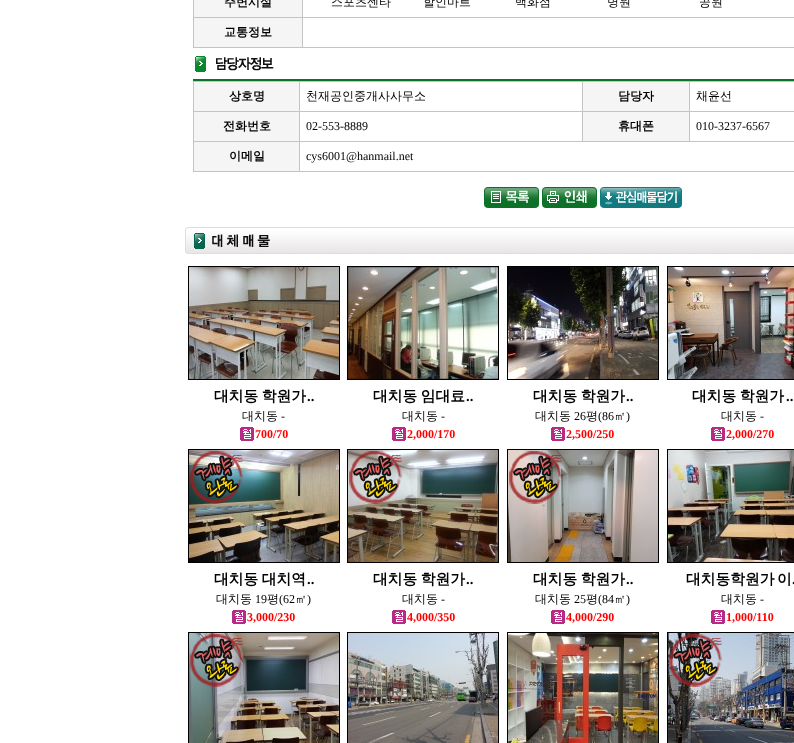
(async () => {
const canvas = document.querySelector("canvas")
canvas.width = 794
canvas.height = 743
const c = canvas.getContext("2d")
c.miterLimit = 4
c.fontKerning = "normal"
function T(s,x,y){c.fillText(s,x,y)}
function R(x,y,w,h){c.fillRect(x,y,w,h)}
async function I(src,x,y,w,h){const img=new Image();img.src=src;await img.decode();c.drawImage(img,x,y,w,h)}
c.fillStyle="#fff"
R(0,0,794,743)
c.fillStyle="#c5c4c5"
R(193,0,601,48)
c.fillStyle="#f5f5f5"
R(194,0,108,17)
c.font="bold 12px WenQuanYi Zen Hei"
c.fillStyle="#000"
T("주변시설",224,6)
c.fillStyle="#fff"
R(303,0,491,17)
c.font="500 12px WenQuanYi Zen Hei"
c.fillStyle="#000"
T("스포츠센타",331,6)
T("할인마트",423,6)
T("백화점",515,6)
T("병원",607,6)
T("공원",699,6)
c.fillStyle="#f5f5f5"
R(194,18,108,29)
c.font="bold 12px WenQuanYi Zen Hei"
c.fillStyle="#000"
T("교통정보",224,36)
c.fillStyle="#fff"
R(303,18,491,29)
await I("1.png",195,56,79,16)
c.fillStyle="#0e7128"
R(193,79,601,2)
c.fillStyle="#c5c4c5"
R(193,81,601,91)
c.fillStyle="#f5f5f5"
R(194,82,105,29)
c.fillStyle="#000"
T("상호명",229,100)
c.fillStyle="#fff"
R(300,82,282,29)
c.font="500 12px WenQuanYi Zen Hei"
c.fillStyle="#000"
T("천재공인중개사사무소",306,100)
c.fillStyle="#f5f5f5"
R(583,82,106,29)
c.font="bold 12px WenQuanYi Zen Hei"
c.fillStyle="#000"
T("담당자",618,100)
c.fillStyle="#fff"
R(690,82,104,29)
c.font="500 12px WenQuanYi Zen Hei"
c.fillStyle="#000"
T("채윤선",696,100)
c.fillStyle="#f5f5f5"
R(194,112,105,29)
c.font="bold 12px WenQuanYi Zen Hei"
c.fillStyle="#000"
T("전화번호",223,130)
c.fillStyle="#fff"
R(300,112,282,29)
c.font="12px Liberation Serif"
c.fillStyle="#000"
T("02-553-8889",306,130)
c.fillStyle="#f5f5f5"
R(583,112,106,29)
c.font="bold 12px WenQuanYi Zen Hei"
c.fillStyle="#000"
T("휴대폰",618,130)
c.fillStyle="#fff"
R(690,112,104,29)
c.font="12px Liberation Serif"
c.fillStyle="#000"
T("010-3237-6567",696,130)
c.fillStyle="#f5f5f5"
R(194,142,105,29)
c.font="bold 12px WenQuanYi Zen Hei"
c.fillStyle="#000"
T("이메일",229,160)
c.fillStyle="#fff"
R(300,142,494,29)
c.font="12px Liberation Serif"
c.fillStyle="#000"
T("cys6001@hanmail.net",306,160)
await I("2.png",484,187,55,21)
await I("3.png",542,187,55,21)
await I("4.png",600,187,82,21)
await I("5.png",185,227,609,27)
R(188,266,152,114)
await I("6.png",189,267,150,112)
c.wordSpacing="-1px"
c.font="bold 14.75px WenQuanYi Zen Hei"
T("대치동 학원가",214,401)
c.wordSpacing="0px"
c.font="bold 14.75px Liberation Serif"
T("..",307,401)
c.font="500 12px WenQuanYi Zen Hei"
T("대치동",242,420)
c.font="12px Liberation Serif"
T("-",281,420)
await I("7.png",240,427,14,14)
c.font="bold 12px Liberation Serif"
c.fillStyle="#f00"
T("700/70",255,438)
c.fillStyle="#000"
R(347,266,152,114)
await I("8.png",348,267,150,112)
c.wordSpacing="-1px"
c.font="bold 14.75px WenQuanYi Zen Hei"
T("대치동 임대료",373,401)
c.wordSpacing="0px"
c.font="bold 14.75px Liberation Serif"
T("..",466,401)
c.font="500 12px WenQuanYi Zen Hei"
T("대치동",402,420)
c.font="12px Liberation Serif"
T("-",441,420)
await I("7.png",392,427,14,14)
c.font="bold 12px Liberation Serif"
c.fillStyle="#f00"
T("2,000/170",407,438)
c.fillStyle="#000"
R(507,266,152,114)
await I("9.png",508,267,150,112)
c.wordSpacing="-1px"
c.font="bold 14.75px WenQuanYi Zen Hei"
T("대치동 학원가",533,401)
c.wordSpacing="0px"
c.font="bold 14.75px Liberation Serif"
T("..",626,401)
c.font="500 12px WenQuanYi Zen Hei"
T("대치동",535,420)
c.font="12px Liberation Serif"
T("26",574,420)
c.font="500 12px WenQuanYi Zen Hei"
T("평",586,420)
c.font="12px Liberation Serif"
T("(86",598,420)
c.font="500 12px WenQuanYi Zen Hei"
T("㎡",614,420)
c.font="12px Liberation Serif"
T(")",626,420)
await I("7.png",551,427,14,14)
c.font="bold 12px Liberation Serif"
c.fillStyle="#f00"
T("2,500/250",566,438)
c.fillStyle="#000"
R(667,266,127,114)
await I("10.png",668,267,126,112)
c.wordSpacing="-1px"
c.font="bold 14.75px WenQuanYi Zen Hei"
T("대치동 학원가",692,401)
c.wordSpacing="0px"
c.font="bold 14.75px Liberation Serif"
T("..",786,401)
c.font="500 12px WenQuanYi Zen Hei"
T("대치동",721,420)
c.font="12px Liberation Serif"
T("-",760,420)
await I("7.png",711,427,14,14)
c.font="bold 12px Liberation Serif"
c.fillStyle="#f00"
T("2,000/270",726,438)
c.fillStyle="#000"
R(188,449,152,114)
await I("11.png",189,450,150,112)
await I("12.png",190,451,53,53)
c.wordSpacing="-1px"
c.font="bold 14.75px WenQuanYi Zen Hei"
T("대치동 대치역",214,584)
c.wordSpacing="0px"
c.font="bold 14.75px Liberation Serif"
T("..",307,584)
c.font="500 12px WenQuanYi Zen Hei"
T("대치동",216,603)
c.font="12px Liberation Serif"
T("19",255,603)
c.font="500 12px WenQuanYi Zen Hei"
T("평",267,603)
c.font="12px Liberation Serif"
T("(62",279,603)
c.font="500 12px WenQuanYi Zen Hei"
T("㎡",295,603)
c.font="12px Liberation Serif"
T(")",307,603)
await I("7.png",232,610,14,14)
c.font="bold 12px Liberation Serif"
c.fillStyle="#f00"
T("3,000/230",247,621)
c.fillStyle="#000"
R(347,449,152,114)
await I("13.png",348,450,150,112)
await I("14.png",349,451,53,53)
c.wordSpacing="-1px"
c.font="bold 14.75px WenQuanYi Zen Hei"
T("대치동 학원가",373,584)
c.wordSpacing="0px"
c.font="bold 14.75px Liberation Serif"
T("..",466,584)
c.font="500 12px WenQuanYi Zen Hei"
T("대치동",402,603)
c.font="12px Liberation Serif"
T("-",441,603)
await I("7.png",392,610,14,14)
c.font="bold 12px Liberation Serif"
c.fillStyle="#f00"
T("4,000/350",407,621)
c.fillStyle="#000"
R(507,449,152,114)
await I("15.png",508,450,150,112)
await I("16.png",509,451,53,53)
c.wordSpacing="-1px"
c.font="bold 14.75px WenQuanYi Zen Hei"
T("대치동 학원가",533,584)
c.wordSpacing="0px"
c.font="bold 14.75px Liberation Serif"
T("..",626,584)
c.font="500 12px WenQuanYi Zen Hei"
T("대치동",535,603)
c.font="12px Liberation Serif"
T("25",574,603)
c.font="500 12px WenQuanYi Zen Hei"
T("평",586,603)
c.font="12px Liberation Serif"
T("(84",598,603)
c.font="500 12px WenQuanYi Zen Hei"
T("㎡",614,603)
c.font="12px Liberation Serif"
T(")",626,603)
await I("7.png",551,610,14,14)
c.font="bold 12px Liberation Serif"
c.fillStyle="#f00"
T("4,000/290",566,621)
c.fillStyle="#000"
R(667,449,127,114)
await I("17.png",668,450,126,112)
c.wordSpacing="-2px"
c.font="bold 14.75px WenQuanYi Zen Hei"
T("대치동학원가 이",686,584)
c.wordSpacing="0px"
c.font="bold 14.75px Liberation Serif"
T(".",792,584)
c.font="500 12px WenQuanYi Zen Hei"
T("대치동",721,603)
c.font="12px Liberation Serif"
T("-",760,603)
await I("7.png",711,610,14,14)
c.font="bold 12px Liberation Serif"
c.fillStyle="#f00"
T("1,000/110",726,621)
c.fillStyle="#000"
R(188,632,152,111)
await I("18.png",189,633,150,110)
await I("19.png",190,634,53,53)
R(347,632,152,111)
await I("20.png",348,633,150,110)
R(507,632,152,111)
await I("21.png",508,633,150,110)
R(667,632,127,111)
await I("22.png",668,633,126,110)
await I("23.png",669,634,53,53)
})()
